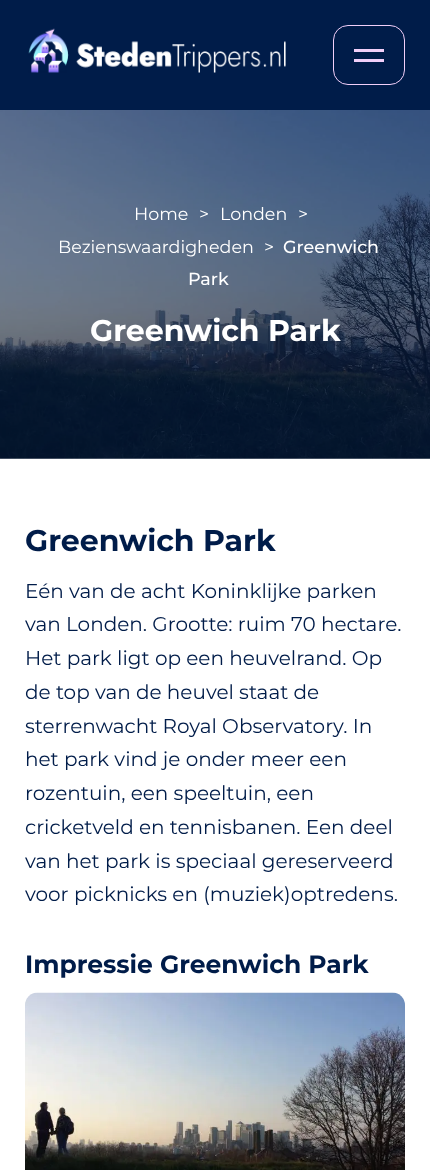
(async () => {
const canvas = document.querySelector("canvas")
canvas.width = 430
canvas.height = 1170
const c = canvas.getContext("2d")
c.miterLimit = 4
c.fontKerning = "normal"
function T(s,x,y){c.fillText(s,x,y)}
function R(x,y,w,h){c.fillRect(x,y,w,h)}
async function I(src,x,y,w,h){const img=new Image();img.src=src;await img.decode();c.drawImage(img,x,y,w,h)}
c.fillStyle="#fff"
R(0,0,430,1170)
c.fillStyle="#001c49"
R(0,0,430,110)
await I("1.png",28,28,258,45)
c.beginPath()
c.roundRect(333.5,25.5,71,59,14.5)
c.strokeStyle="#f1cff9"
c.stroke()
c.fillStyle="#f1cff9"
R(354,49,30,3)
R(354,59,30,3)
await I("2.png",0,110,430,349)
c.font="17.5px Montserrat"
c.fillStyle="#fff"
T("Home",134,220)
T(">",199,220)
T("Londen",220,220)
T(">",298,220)
T("Bezienswaardigheden",58,253)
T(">",264,253)
c.font="500 17.5px Montserrat"
T("Greenwich",283,253)
T("Park",188,285)
c.font="bold 30px Montserrat"
T("Greenwich Park",90,341)
c.fillStyle="#001c49"
T("Greenwich Park",25,551)
c.font="20px Montserrat"
T("Eén van de acht Koninklijke parken",25,598)
T("van Londen. Grootte: ruim 70 hectare.",25,631)
T("Het park ligt op een heuvelrand. Op",25,665)
T("de top van de heuvel staat de",25,699)
T("sterrenwacht Royal Observatory. In",25,733)
T("het park vind je onder meer een",25,766)
T("rozentuin, een speeltuin, een",25,800)
T("cricketveld en tennisbanen. Een deel",25,834)
T("van het park is speciaal gereserveerd",25,868)
T("voor picknicks en (muziek)optredens.",25,901)
c.font="bold 25px Montserrat"
T("Impressie Greenwich Park",25,973)
await I("3.png",25,992,380,178)
})()
